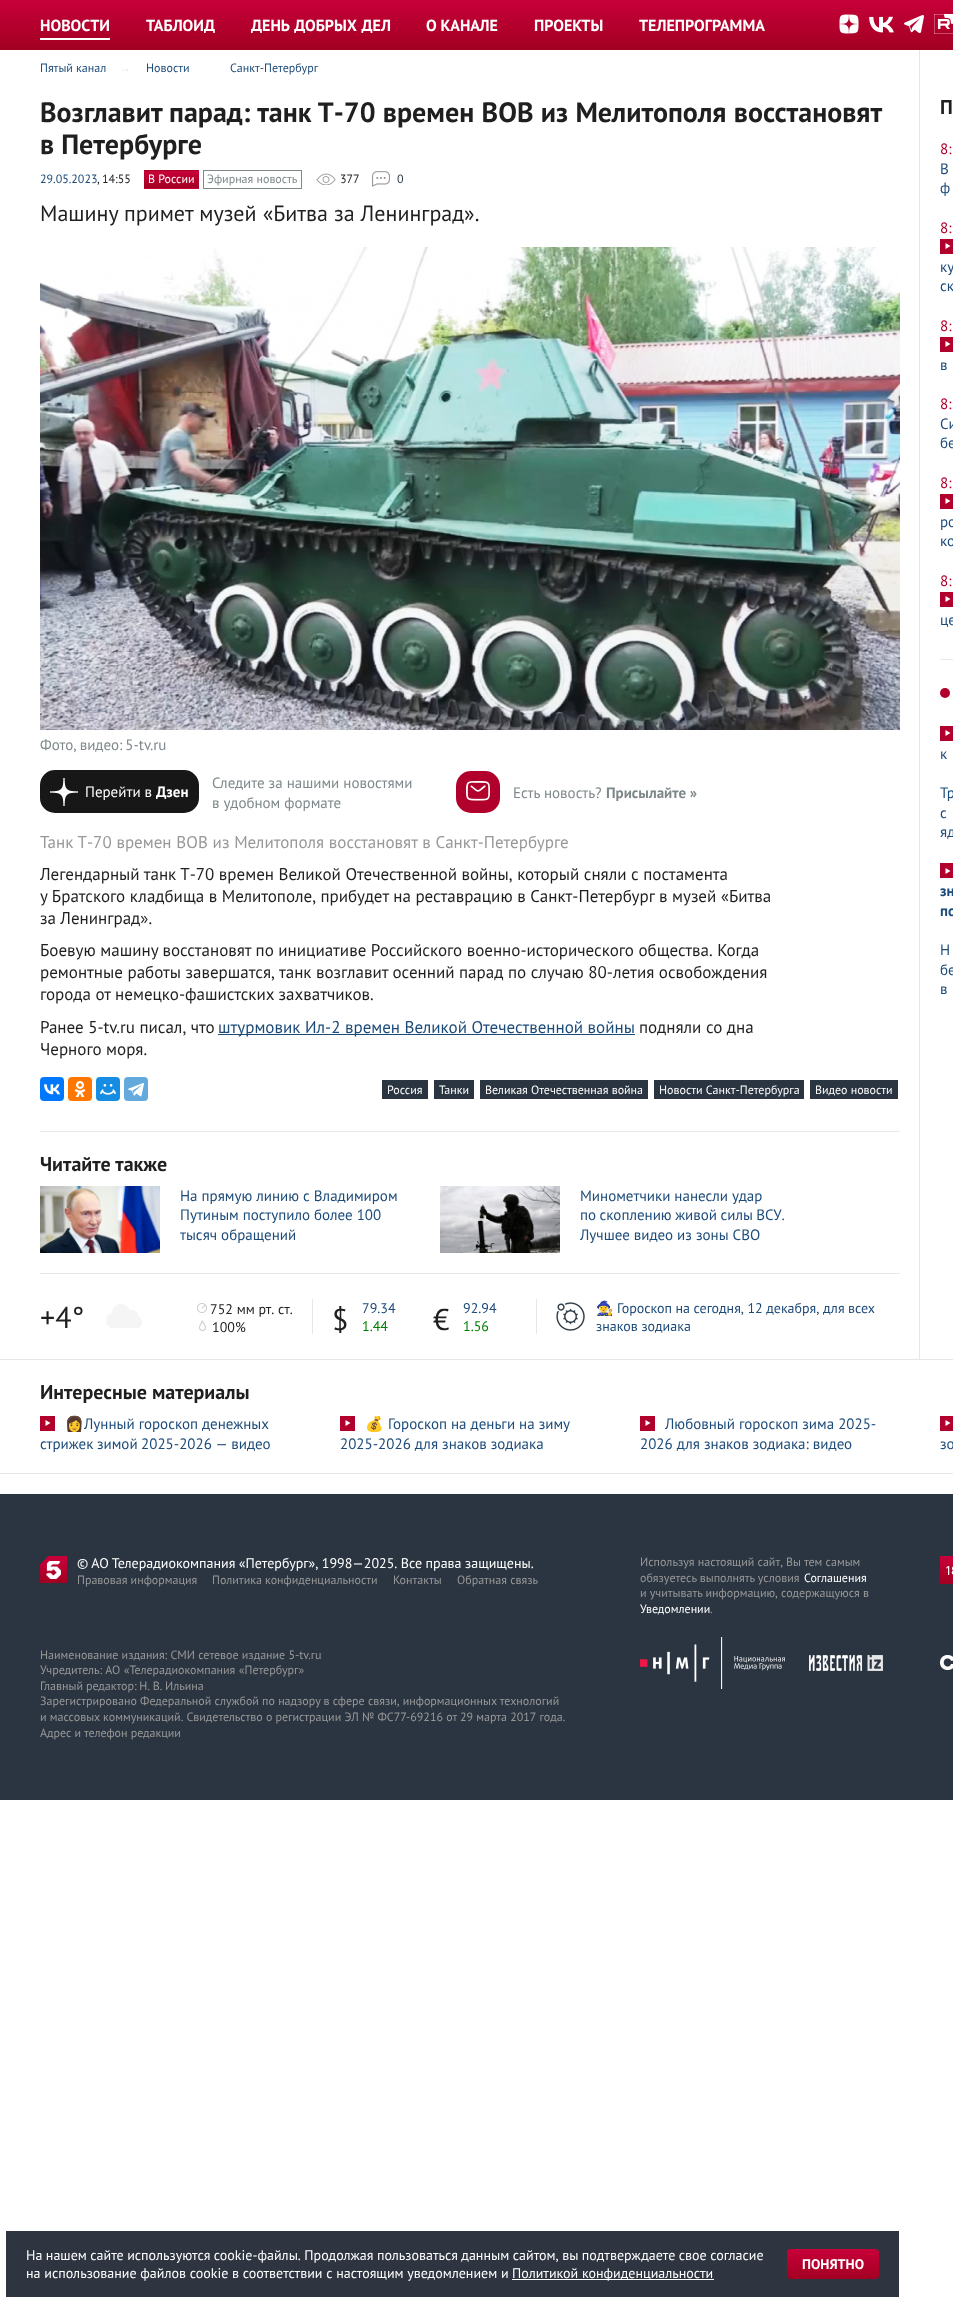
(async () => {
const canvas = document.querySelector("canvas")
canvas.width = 953
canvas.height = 2303
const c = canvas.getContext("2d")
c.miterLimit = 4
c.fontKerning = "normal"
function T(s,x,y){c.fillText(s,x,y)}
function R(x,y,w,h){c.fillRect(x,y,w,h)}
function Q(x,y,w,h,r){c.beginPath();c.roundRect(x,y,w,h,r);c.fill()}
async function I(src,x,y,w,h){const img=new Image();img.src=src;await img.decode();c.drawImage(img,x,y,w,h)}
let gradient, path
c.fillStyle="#fff"
R(0,0,953,2303)
gradient = c.createLinearGradient(620,0,620,50)
gradient.addColorStop(0,"#c70039")
gradient.addColorStop(1,"#a20022")
c.fillStyle = gradient
R(0,0,953,50)
c.font="bold 16px PT Sans"
c.fillStyle="#fff"
T("НОВОСТИ",40,31)
R(40,38,70,2)
T("ТАБЛОИД",146,31)
c.wordSpacing="1px"
T("ДЕНЬ ДОБРЫХ ДЕЛ",251,31)
c.wordSpacing="0px"
T("О КАНАЛЕ",426,31)
T("ПРОЕКТЫ",534,31)
T("ТЕЛЕПРОГРАММА",639,31)
await I("1.png",839,14,20,20)
await I("2.png",869,16,25,17)
await I("3.png",904,15,20,19)
await I("4.png",934,14,19,20)
c.font="12px PT Sans"
c.fillStyle="#1d4b79"
T("Пятый канал",40,72)
c.font="12px Liberation Sans"
c.fillStyle="#e7e7e7"
T("→",119,72)
c.font="12px PT Sans"
c.fillStyle="#1d4b79"
T("Новости",146,72)
T("Санкт-Петербург",230,72)
c.wordSpacing="0.25px"
c.font="bold 28px PT Sans"
c.fillStyle="#1f1f1f"
T("Возглавит парад: танк Т-70 времен ВОВ из Мелитополя восстановят",40,122)
c.wordSpacing="0px"
T("в Петербурге",40,154)
c.font="12px PT Sans"
c.fillStyle="#1d4b79"
T("29.05.2023",40,183)
c.fillStyle="#1f1f1f"
T(",",97,183)
T("14:55",102,183)
gradient = c.createLinearGradient(172,154,172,171)
gradient.addColorStop(0,"#c80039")
gradient.addColorStop(1,"#a30023")
c.fillStyle = gradient
R(144,170,55,1)
gradient = c.createLinearGradient(172,171,172,188)
gradient.addColorStop(0,"#c80039")
gradient.addColorStop(1,"#a30023")
c.fillStyle = gradient
R(144,171,55,17)
gradient = c.createLinearGradient(172,188,172,205)
gradient.addColorStop(0,"#c80039")
gradient.addColorStop(1,"#a30023")
c.fillStyle = gradient
R(144,188,55,1)
c.fillStyle="#fff"
T("В России",148,183)
c.strokeStyle="#7e888b"
c.strokeRect(203.5,170.5,98,18)
c.fillStyle="#7e888b"
T("Эфирная новость",207,183)
await I("5.png",316,173,20,12)
c.fillStyle="#1f1f1f"
T("377",340,183)
await I("6.png",372,171,18,16)
c.fillStyle="#2b3541"
T("0",397,183)
c.wordSpacing="0.25px"
c.font="22px PT Sans"
c.fillStyle="#1f1f1f"
T("Машину примет музей «Битва за Ленинград».",40,221)
await I("7.png",40,247,860,483)
c.wordSpacing="-1px"
c.font="15px PT Sans"
c.fillStyle="#7e888b"
T("Фото, видео: 5-tv.ru",40,750)
c.fillStyle="#171717"
Q(40,770,159,43,15)
await I("8.png",50,778,28,28)
c.wordSpacing="0px"
c.fillStyle="#fff"
T("Перейти в",85,797)
c.font="bold 15px PT Sans"
T("Дзен",156,797)
c.font="15px PT Sans"
c.fillStyle="#7e888b"
T("Следите за нашими новостями",212,788)
T("в удобном формате",212,808)
c.fillStyle="#b1002b"
Q(456,771,44,42,15)
await I("9.png",466,781,24,20)
c.fillStyle="#7e888b"
T("Есть новость?",513,798)
c.font="bold 15px PT Sans"
T("Присылайте »",606,798)
c.wordSpacing="0.25px"
c.font="17px PT Sans"
c.fillStyle="#989898"
T("Танк Т-70 времен ВОВ из Мелитополя восстановят в Санкт-Петербурге",40,848)
c.wordSpacing="0px"
c.fillStyle="#1f1f1f"
T("Легендарный танк Т-70 времен Великой Отечественной войны, который сняли с постамента",40,880)
T("у Братского кладбища в Мелитополе, прибудет на реставрацию в Санкт-Петербург в музей «Битва",40,902)
T("за Ленинград».",40,924)
T("Боевую машину восстановят по инициативе Российского военно-исторического общества. Когда",40,956)
T("ремонтные работы завершатся, танк возглавит осенний парад по случаю 80-летия освобождения",40,978)
T("города от немецко-фашистских захватчиков.",40,1000)
T("Ранее 5-tv.ru писал, что",40,1033)
c.fillStyle="#1d4b79"
R(218,1034,417,1)
T("штурмовик Ил-2 времен Великой Отечественной войны",218,1033)
c.fillStyle="#1f1f1f"
T("подняли со дна",639,1033)
T("Черного моря.",40,1055)
c.fillStyle="#07f"
Q(40,1077,24,24,4)
await I("10.png",44,1084,16,11)
c.fillStyle="#f70"
Q(68,1077,24,24,4)
await I("11.png",74,1081,12,16)
c.fillStyle="#168de2"
Q(96,1077,24,24,4)
await I("12.png",100,1084,16,11)
c.fillStyle="#64a9dc"
Q(124,1077,24,24,4)
await I("13.png",128,1083,16,14)
c.fillStyle="#2b3541"
R(382,1080,46,19)
c.font="12px PT Sans"
c.fillStyle="#fff"
T("Россия",387,1094)
c.fillStyle="#2b3541"
R(434,1080,40,19)
c.fillStyle="#fff"
T("Танки",439,1094)
c.fillStyle="#2b3541"
R(480,1080,168,19)
c.fillStyle="#fff"
T("Великая Отечественная война",485,1094)
c.fillStyle="#2b3541"
R(654,1080,150,19)
c.fillStyle="#fff"
T("Новости Санкт-Петербурга",659,1094)
c.fillStyle="#2b3541"
R(810,1080,88,19)
c.fillStyle="#fff"
T("Видео новости",815,1094)
c.fillStyle="#e7e7e7"
R(40,1131,860,1)
c.font="bold 20px PT Sans"
c.fillStyle="#1f1f1f"
T("Читайте также",40,1171)
await I("14.png",40,1186,120,67)
c.font="15px PT Sans"
c.fillStyle="#1d4b79"
T("На прямую линию с Владимиром",180,1201)
T("Путиным поступило более 100",180,1220)
T("тысяч обращений",180,1240)
await I("15.png",440,1186,120,67)
T("Минометчики нанесли удар",580,1201)
c.wordSpacing="-0.5px"
T("по скоплению живой силы ВСУ.",580,1220)
c.wordSpacing="0px"
T("Лучшее видео из зоны СВО",580,1240)
c.fillStyle="#e7e7e7"
R(40,1273,860,1)
await I("16.png",106,1304,36,24)
c.font="30px PT Sans"
c.fillStyle="#1f1f1f"
T("+4°",40,1328)
await I("17.png",197,1303,10,10)
c.font="14px PT Sans"
T("752 мм рт. ст.",210,1314)
await I("18.png",199,1320,7,11)
T("100%",212,1332)
c.fillStyle="#e7e7e7"
R(312,1299,1,35)
c.font="30px PT Sans"
c.fillStyle="#1f1f1f"
T("$",332,1330)
c.font="14px PT Sans"
c.fillStyle="#1d4b79"
T("79.34",362,1313)
c.fillStyle="#008000"
T("1.44",362,1331)
c.font="30px PT Sans"
c.fillStyle="#1f1f1f"
T("€",433,1330)
c.font="14px PT Sans"
c.fillStyle="#1d4b79"
T("92.94",463,1313)
c.fillStyle="#008000"
T("1.56",463,1331)
c.fillStyle="#e7e7e7"
R(536,1299,1,35)
await I("19.png",556,1302,29,29)
c.font="14px Noto Color Emoji"
c.fillStyle="#1d4b79"
T("🧙‍♀",596,1313)
c.wordSpacing="-0.25px"
c.font="14px PT Sans"
T("Гороскоп на сегодня, 12 декабря, для всех",617,1313)
c.wordSpacing="0px"
T("знаков зодиака",596,1331)
c.fillStyle="#e7e7e7"
R(919,50,1,1309)
c.font="bold 20px PT Sans"
c.fillStyle="#1f1f1f"
T("П",940,114)
c.font="15px PT Sans"
c.fillStyle="#b1002b"
T("8:",940,154)
c.fillStyle="#1d4b79"
T("В",940,174)
T("ф",940,193)
c.fillStyle="#b1002b"
T("8:",940,233)
R(940,239,13,15)
c.fillStyle="#fff"
path = new Path2D("M945.5 243v6l5-3z")
c.fill(path)
c.fillStyle="#1d4b79"
T("ку",940,272)
T("ск",940,291)
c.fillStyle="#b1002b"
T("8:",940,331)
R(940,337,13,15)
c.fillStyle="#fff"
path = new Path2D("M945.5 341v6l5-3z")
c.fill(path)
c.fillStyle="#1d4b79"
T("в",940,370)
c.fillStyle="#b1002b"
T("8:",940,409)
c.fillStyle="#1d4b79"
T("Си",940,429)
T("бе",940,448)
c.fillStyle="#b1002b"
T("8:",940,488)
R(940,494,13,15)
c.fillStyle="#fff"
path = new Path2D("M945.5 498v6l5-3z")
c.fill(path)
c.fillStyle="#1d4b79"
T("ро",940,527)
T("ко",940,546)
c.fillStyle="#b1002b"
T("8:",940,586)
R(940,592,13,15)
c.fillStyle="#fff"
path = new Path2D("M945.5 596v6l5-3z")
c.fill(path)
c.fillStyle="#1d4b79"
T("це",940,625)
c.fillStyle="#e7e7e7"
R(940,659,13,1)
c.fillStyle="#b1002b"
c.beginPath()
c.arc(945,693,5,0,7)
c.fill()
R(940,726,13,15)
c.fillStyle="#fff"
path = new Path2D("M945.5 730v6l5-3z")
c.fill(path)
c.fillStyle="#1d4b79"
T("к",940,759)
T("Тр",940,798)
T("с",940,818)
T("яд",940,837)
c.fillStyle="#b1002b"
R(940,863,13,15)
c.fillStyle="#fff"
path = new Path2D("M945.5 868v6l5-3z")
c.fill(path)
c.font="bold 15px PT Sans"
c.fillStyle="#1d4b79"
T("зн",940,896)
T("по",940,916)
c.font="15px PT Sans"
T("Н",940,955)
T("бе",940,975)
T("в",940,994)
c.fillStyle="#e7e7e7"
R(0,1359,953,1)
c.font="bold 20px PT Sans"
c.fillStyle="#1f1f1f"
T("Интересные материалы",40,1399)
c.fillStyle="#b1002b"
R(40,1416,15,15)
c.fillStyle="#fff"
path = new Path2D("M45.5 1420v6l5-3z")
c.fill(path)
c.font="15px Noto Color Emoji"
c.fillStyle="#1d4b79"
T("👩",65,1429)
c.font="15px PT Sans"
T("Лунный гороскоп денежных",84,1429)
c.wordSpacing="-0.5px"
T("стрижек зимой 2025-2026 — видео",40,1449)
c.fillStyle="#b1002b"
R(340,1416,15,15)
c.fillStyle="#fff"
path = new Path2D("M345.5 1420v6l5-3z")
c.fill(path)
c.wordSpacing="0px"
c.font="15px Noto Color Emoji"
c.fillStyle="#1d4b79"
T("💰",365,1429)
c.font="15px PT Sans"
T("Гороскоп на деньги на зиму",388,1429)
T("2025-2026 для знаков зодиака",340,1449)
c.fillStyle="#b1002b"
R(640,1416,15,15)
c.fillStyle="#fff"
path = new Path2D("M645.5 1420v6l5-3z")
c.fill(path)
c.fillStyle="#1d4b79"
T("Любовный гороскоп зима 2025-",665,1429)
T("2026 для знаков зодиака: видео",640,1449)
c.fillStyle="#b1002b"
R(940,1416,13,15)
c.fillStyle="#fff"
path = new Path2D("M945.5 1420v6l5-3z")
c.fill(path)
c.fillStyle="#1d4b79"
T("зо",940,1449)
c.fillStyle="#e7e7e7"
R(0,1473,953,1)
c.fillStyle="#2b3541"
R(0,1494,953,306)
await I("20.png",40,1556,27,27)
c.wordSpacing="-0.25px"
c.font="14px PT Sans"
c.fillStyle="#fff"
T("© АО Телерадиокомпания «Петербург», 1998—2025. Все права защищены.",77,1568)
c.wordSpacing="0px"
c.font="12px PT Sans"
c.fillStyle="#989898"
T("Правовая информация",77,1584)
T("Политика конфиденциальности",212,1584)
T("Контакты",393,1584)
T("Обратная связь",457,1584)
T("Используя настоящий сайт, Вы тем самым",640,1566)
T("обязуетесь выполнять условия",640,1582)
c.fillStyle="#fff"
T("Соглашения",804,1582)
c.fillStyle="#989898"
T("и учитывать информацию, содержащуюся в",640,1597)
c.fillStyle="#fff"
T("Уведомлении",640,1613)
c.fillStyle="#989898"
T(".",710,1613)
await I("21.png",940,1556,13,28)
T("Наименование издания: СМИ сетевое издание 5-tv.ru",40,1659)
c.wordSpacing="0.25px"
T("Учредитель: АО «Телерадиокомпания «Петербург»",40,1674)
c.wordSpacing="0px"
T("Главный",40,1690)
c.wordSpacing="-0.5px"
T("редактор: Н. В. Ильина",86,1690)
c.wordSpacing="0px"
T("Зарегистрировано Федеральной службой по надзору в сфере связи, информационных технологий",40,1705)
T("и массовых коммуникаций. Свидетельство о регистрации ЭЛ № ФС77-69216 от 29 марта 2017 года.",40,1721)
T("Адрес и телефон редакции",40,1737)
await I("22.png",640,1637,145,52)
await I("23.png",809,1655,74,16)
await I("24.png",940,1655,13,15)
c.fillStyle="#2e3541"
R(6,2231,893,66)
c.wordSpacing="-0.25px"
c.font="14px PT Sans"
c.fillStyle="#fff"
T("На нашем сайте используются cookie-файлы. Продолжая пользоваться данным сайтом, вы подтверждаете свое согласие",26,2260)
c.wordSpacing="0px"
T("на использование файлов cookie в соответствии с настоящим уведомлением и",26,2278)
R(512,2279,202,1)
T("Политикой конфиденциальности",512,2278)
gradient = c.createLinearGradient(833,2249,833,2279)
gradient.addColorStop(0,"#c80039")
gradient.addColorStop(1,"#a30023")
c.fillStyle = gradient
Q(787,2249,92,30,4)
c.font="bold 14px PT Sans"
c.fillStyle="#fff"
T("ПОНЯТНО",802,2269)
})()
